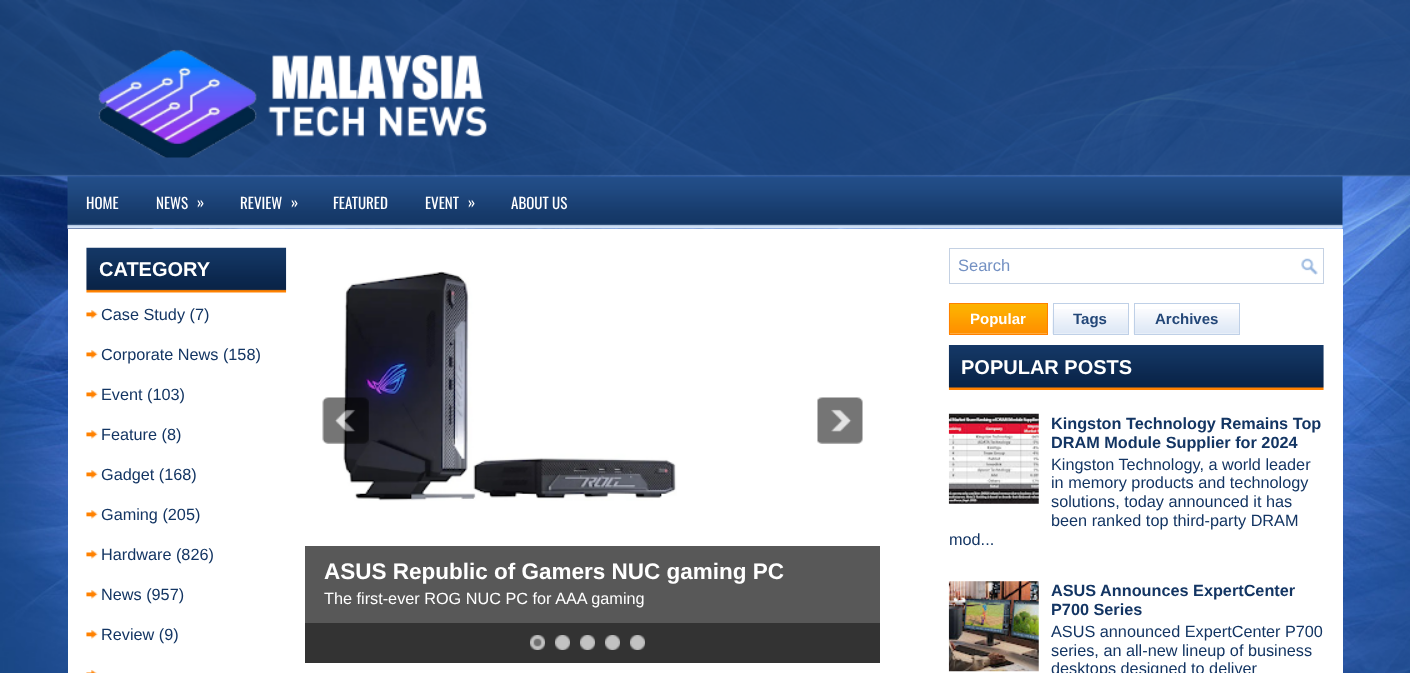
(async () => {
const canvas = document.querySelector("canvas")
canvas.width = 1410
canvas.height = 673
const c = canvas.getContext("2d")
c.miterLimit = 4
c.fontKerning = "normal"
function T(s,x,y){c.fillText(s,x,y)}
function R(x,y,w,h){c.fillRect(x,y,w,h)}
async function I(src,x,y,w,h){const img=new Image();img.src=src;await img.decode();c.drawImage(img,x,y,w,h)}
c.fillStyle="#fff"
R(0,0,1410,673)
await I("1.png",0,0,1410,673)
await I("2.png",0,0,1410,177)
await I("3.png",98,49,389,109)
await I("4.png",67,176,1276,53)
c.font="15px Oswald"
T("HOME",86,209)
T("NEWS",156,209)
T("»",197,208)
T("REVIEW",240,209)
T("»",291,208)
T("FEATURED",333,209)
T("EVENT",425,209)
T("»",468,208)
T("ABOUT US",511,209)
R(68,229,1275,444)
await I("5.png",86,247,201,46)
c.font="bold 20px Liberation Sans"
T("CATEGORY",99,276)
await I("6.png",86,310,12,9)
c.font="16.25px Liberation Sans"
c.fillStyle="#133563"
T("Case Study (7)",101,320)
await I("6.png",86,350,12,9)
T("Corporate News (158)",101,360)
await I("6.png",86,390,12,9)
T("Event (103)",101,400)
await I("6.png",86,430,12,9)
T("Feature (8)",101,440)
await I("6.png",86,470,12,9)
T("Gadget (168)",101,480)
await I("6.png",86,510,12,9)
T("Gaming (205)",101,520)
await I("6.png",86,550,12,9)
T("Hardware (826)",101,560)
await I("6.png",86,590,12,9)
T("News (957)",101,600)
await I("6.png",86,630,12,9)
T("Review (9)",101,640)
await I("7.png",86,670,11,3)
await I("8.png",343,271,334,230)
await I("9.png",322,397,47,47)
await I("10.png",817,397,46,47)
c.fillStyle="#585858"
R(305,546,575,77)
c.font="bold 22.5px Liberation Sans"
c.fillStyle="#fff"
T("ASUS Republic of Gamers NUC gaming PC",324,579)
c.font="16.25px Liberation Sans"
T("The first-ever ROG NUC PC for AAA gaming",324,604)
c.fillStyle="#333"
R(305,623,575,40)
await I("11.png",530,635,15,15)
await I("12.png",555,635,15,15)
await I("12.png",580,635,15,15)
await I("13.png",605,635,15,15)
await I("13.png",630,635,15,15)
await I("14.png",1301,258,17,17)
c.strokeStyle="#c4d1e3"
c.strokeRect(949.5,248.5,374,35)
c.font="16.5px Liberation Sans"
c.fillStyle="#7491c3"
T("Search",958,271)
await I("15.png",948,304,99,30)
c.strokeStyle="#ff8100"
c.strokeRect(949.5,303.5,98,31)
c.font="bold 15px Liberation Sans"
c.fillStyle="#fff"
T("Popular",970,324)
await I("16.png",1052,309,76,25)
c.strokeStyle="#bfd0e7"
c.strokeRect(1053.5,303.5,75,31)
c.fillStyle="#234778"
T("Tags",1073,324)
await I("17.png",1133,309,106,25)
c.strokeRect(1134.5,303.5,105,31)
T("Archives",1155,324)
await I("18.png",948,345,376,45)
c.font="bold 20px Liberation Sans"
c.fillStyle="#fff"
T("POPULAR POSTS",961,374)
await I("19.png",948,413,91,91)
c.font="bold 16.25px Liberation Sans"
c.fillStyle="#133563"
T("Kingston Technology Remains Top",1051,429)
T("DRAM Module Supplier for 2024",1051,448)
c.font="16.25px Liberation Sans"
T("Kingston Technology, a world leader",1051,470)
T("in memory products and technology",1051,488)
T("solutions, today announced it has",1051,507)
T("been ranked top third-party DRAM",1051,526)
T("mod...",949,545)
await I("20.png",948,581,91,91)
c.font="bold 16.25px Liberation Sans"
T("ASUS Announces ExpertCenter",1051,596)
T("P700 Series",1051,615)
c.font="16.25px Liberation Sans"
T("ASUS announced ExpertCenter P700",1051,637)
T("series, an all-new lineup of business",1051,656)
T("desktops designed to deliver",1051,674)
})()
